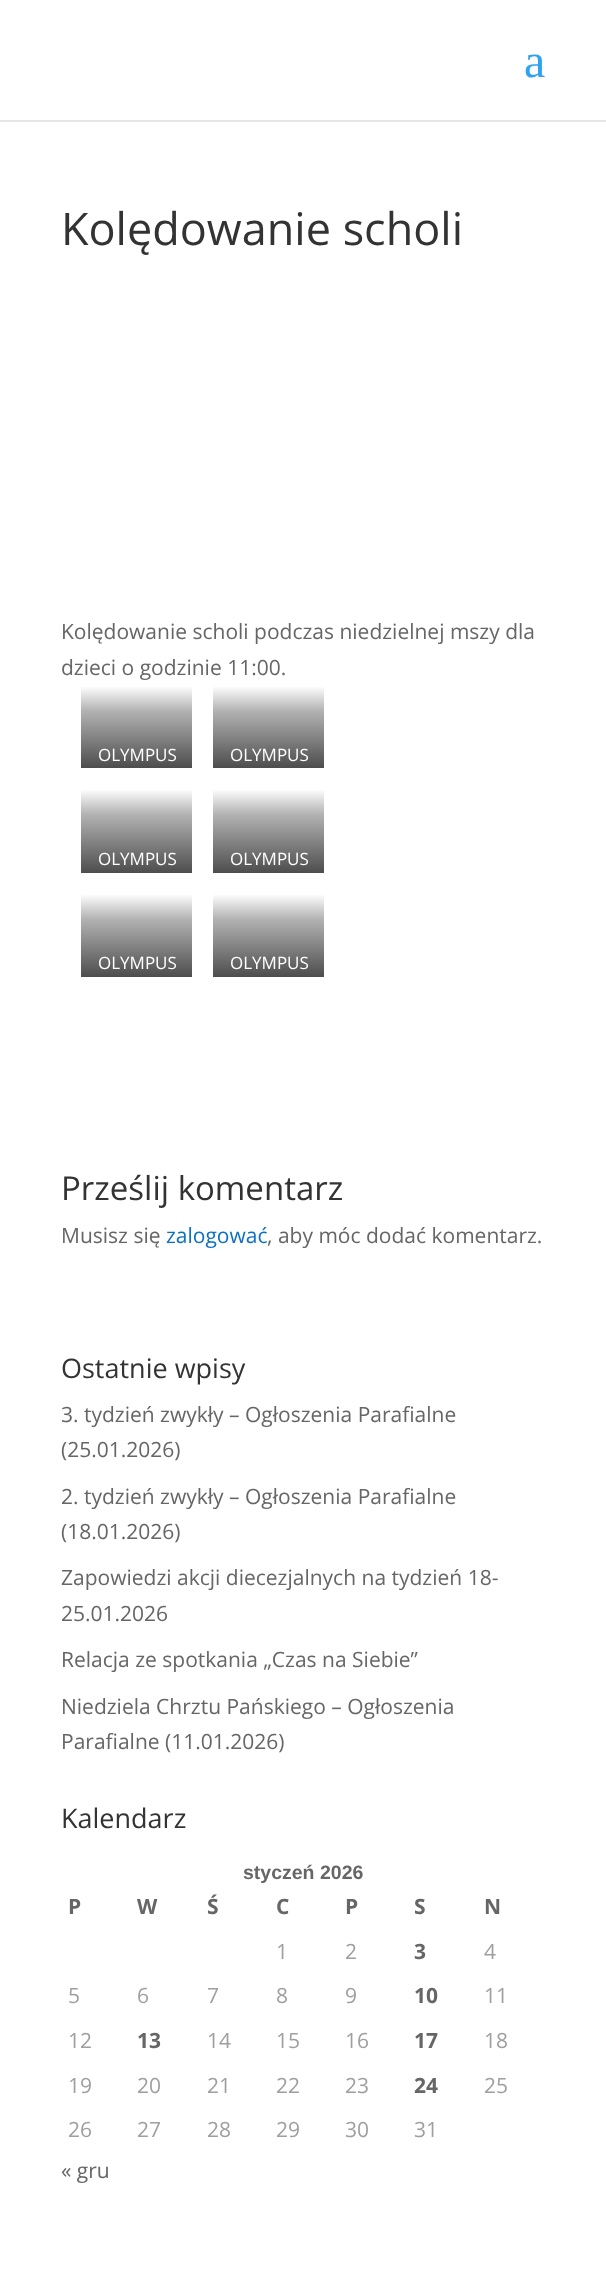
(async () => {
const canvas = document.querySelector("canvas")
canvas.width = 606
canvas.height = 2273
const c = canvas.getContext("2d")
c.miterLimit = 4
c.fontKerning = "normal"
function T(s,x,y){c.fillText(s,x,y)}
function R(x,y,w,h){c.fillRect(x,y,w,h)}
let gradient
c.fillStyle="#fff"
R(0,0,606,2273)
c.fillStyle="#e6e6e6"
R(0,120,606,2)
c.font="48px Liberation Serif"
c.fillStyle="#2ea3f2"
T("a",524,77)
c.font="45px Open Sans"
c.fillStyle="#333"
T("Kolędowanie scholi",61,245)
c.font="21px Open Sans"
c.fillStyle="#666"
T("Kolędowanie scholi podczas niedzielnej mszy dla",61,639)
T("dzieci o godzinie 11:00.",61,675)
gradient = c.createLinearGradient(137,768,137,686)
gradient.addColorStop(0,"#4d4d4d")
gradient.addColorStop(.7,"#b3b3b3")
gradient.addColorStop(1,"#fff")
c.fillStyle = gradient
R(81,687,111,81)
c.font="17px Open Sans"
c.fillStyle="#fff"
T("OLYMPUS",98,761)
gradient = c.createLinearGradient(269,768,269,686)
gradient.addColorStop(0,"#4d4d4d")
gradient.addColorStop(.7,"#b3b3b3")
gradient.addColorStop(1,"#fff")
c.fillStyle = gradient
R(213,687,111,81)
c.fillStyle="#fff"
T("OLYMPUS",230,761)
gradient = c.createLinearGradient(137,873,137,789)
gradient.addColorStop(0,"#4d4d4d")
gradient.addColorStop(.7,"#b3b3b3")
gradient.addColorStop(1,"#fff")
c.fillStyle = gradient
R(81,790,111,83)
c.fillStyle="#fff"
T("OLYMPUS",98,865)
gradient = c.createLinearGradient(269,873,269,789)
gradient.addColorStop(0,"#4d4d4d")
gradient.addColorStop(.7,"#b3b3b3")
gradient.addColorStop(1,"#fff")
c.fillStyle = gradient
R(213,790,111,83)
c.fillStyle="#fff"
T("OLYMPUS",230,865)
gradient = c.createLinearGradient(137,977,137,894)
gradient.addColorStop(0,"#4d4d4d")
gradient.addColorStop(.7,"#b3b3b3")
gradient.addColorStop(1,"#fff")
c.fillStyle = gradient
R(81,895,111,82)
c.fillStyle="#fff"
T("OLYMPUS",98,969)
gradient = c.createLinearGradient(269,977,269,894)
gradient.addColorStop(0,"#4d4d4d")
gradient.addColorStop(.7,"#b3b3b3")
gradient.addColorStop(1,"#fff")
c.fillStyle = gradient
R(213,895,111,82)
c.fillStyle="#fff"
T("OLYMPUS",230,969)
c.font="33px Open Sans"
c.fillStyle="#333"
T("Prześlij komentarz",61,1200)
c.font="21px Open Sans"
c.fillStyle="#666"
T("Musisz się",61,1243)
c.fillStyle="#0c71c3"
T("zalogować",166,1243)
c.fillStyle="#666"
T(", aby móc dodać komentarz.",267,1243)
c.font="27px Open Sans"
c.fillStyle="#333"
T("Ostatnie wpisy",61,1378)
c.font="21px Open Sans"
c.fillStyle="#666"
T("3. tydzień zwykły – Ogłoszenia Parafialne",61,1422)
T("(25.01.2026)",61,1457)
T("2. tydzień zwykły – Ogłoszenia Parafialne",61,1504)
T("(18.01.2026)",61,1539)
T("Zapowiedzi akcji diecezjalnych na tydzień 18-",61,1585)
T("25.01.2026",61,1621)
T("Relacja ze spotkania „Czas na Siebie”",61,1667)
T("Niedziela Chrztu Pańskiego – Ogłoszenia",61,1714)
T("Parafialne (11.01.2026)",61,1749)
c.font="27px Open Sans"
c.fillStyle="#333"
T("Kalendarz",61,1828)
c.font="bold 19.5px Liberation Sans"
c.fillStyle="#666"
T("styczeń 2026",243,1879)
c.font="bold 21px Open Sans"
T("P",68,1914)
T("W",137,1914)
T("Ś",207,1914)
T("C",276,1914)
T("P",345,1914)
T("S",414,1914)
T("N",484,1914)
c.font="21px Open Sans"
c.fillStyle="#9f9f9f"
T("1",276,1959)
T("2",345,1959)
c.font="bold 21px Open Sans"
c.fillStyle="#666"
T("3",414,1959)
c.font="21px Open Sans"
c.fillStyle="#9f9f9f"
T("4",484,1959)
T("5",68,2003)
T("6",137,2003)
T("7",207,2003)
T("8",276,2003)
T("9",345,2003)
c.font="bold 21px Open Sans"
c.fillStyle="#666"
T("10",414,2003)
c.font="21px Open Sans"
c.fillStyle="#9f9f9f"
T("11",484,2003)
T("12",68,2048)
c.font="bold 21px Open Sans"
c.fillStyle="#666"
T("13",137,2048)
c.font="21px Open Sans"
c.fillStyle="#9f9f9f"
T("14",207,2048)
T("15",276,2048)
T("16",345,2048)
c.font="bold 21px Open Sans"
c.fillStyle="#666"
T("17",414,2048)
c.font="21px Open Sans"
c.fillStyle="#9f9f9f"
T("18",484,2048)
T("19",68,2093)
T("20",137,2093)
T("21",207,2093)
T("22",276,2093)
T("23",345,2093)
c.font="bold 21px Open Sans"
c.fillStyle="#666"
T("24",414,2093)
c.font="21px Open Sans"
c.fillStyle="#9f9f9f"
T("25",484,2093)
T("26",68,2137)
T("27",137,2137)
T("28",207,2137)
T("29",276,2137)
T("30",345,2137)
T("31",414,2137)
c.fillStyle="#666"
T("« gru",61,2178)
})()
